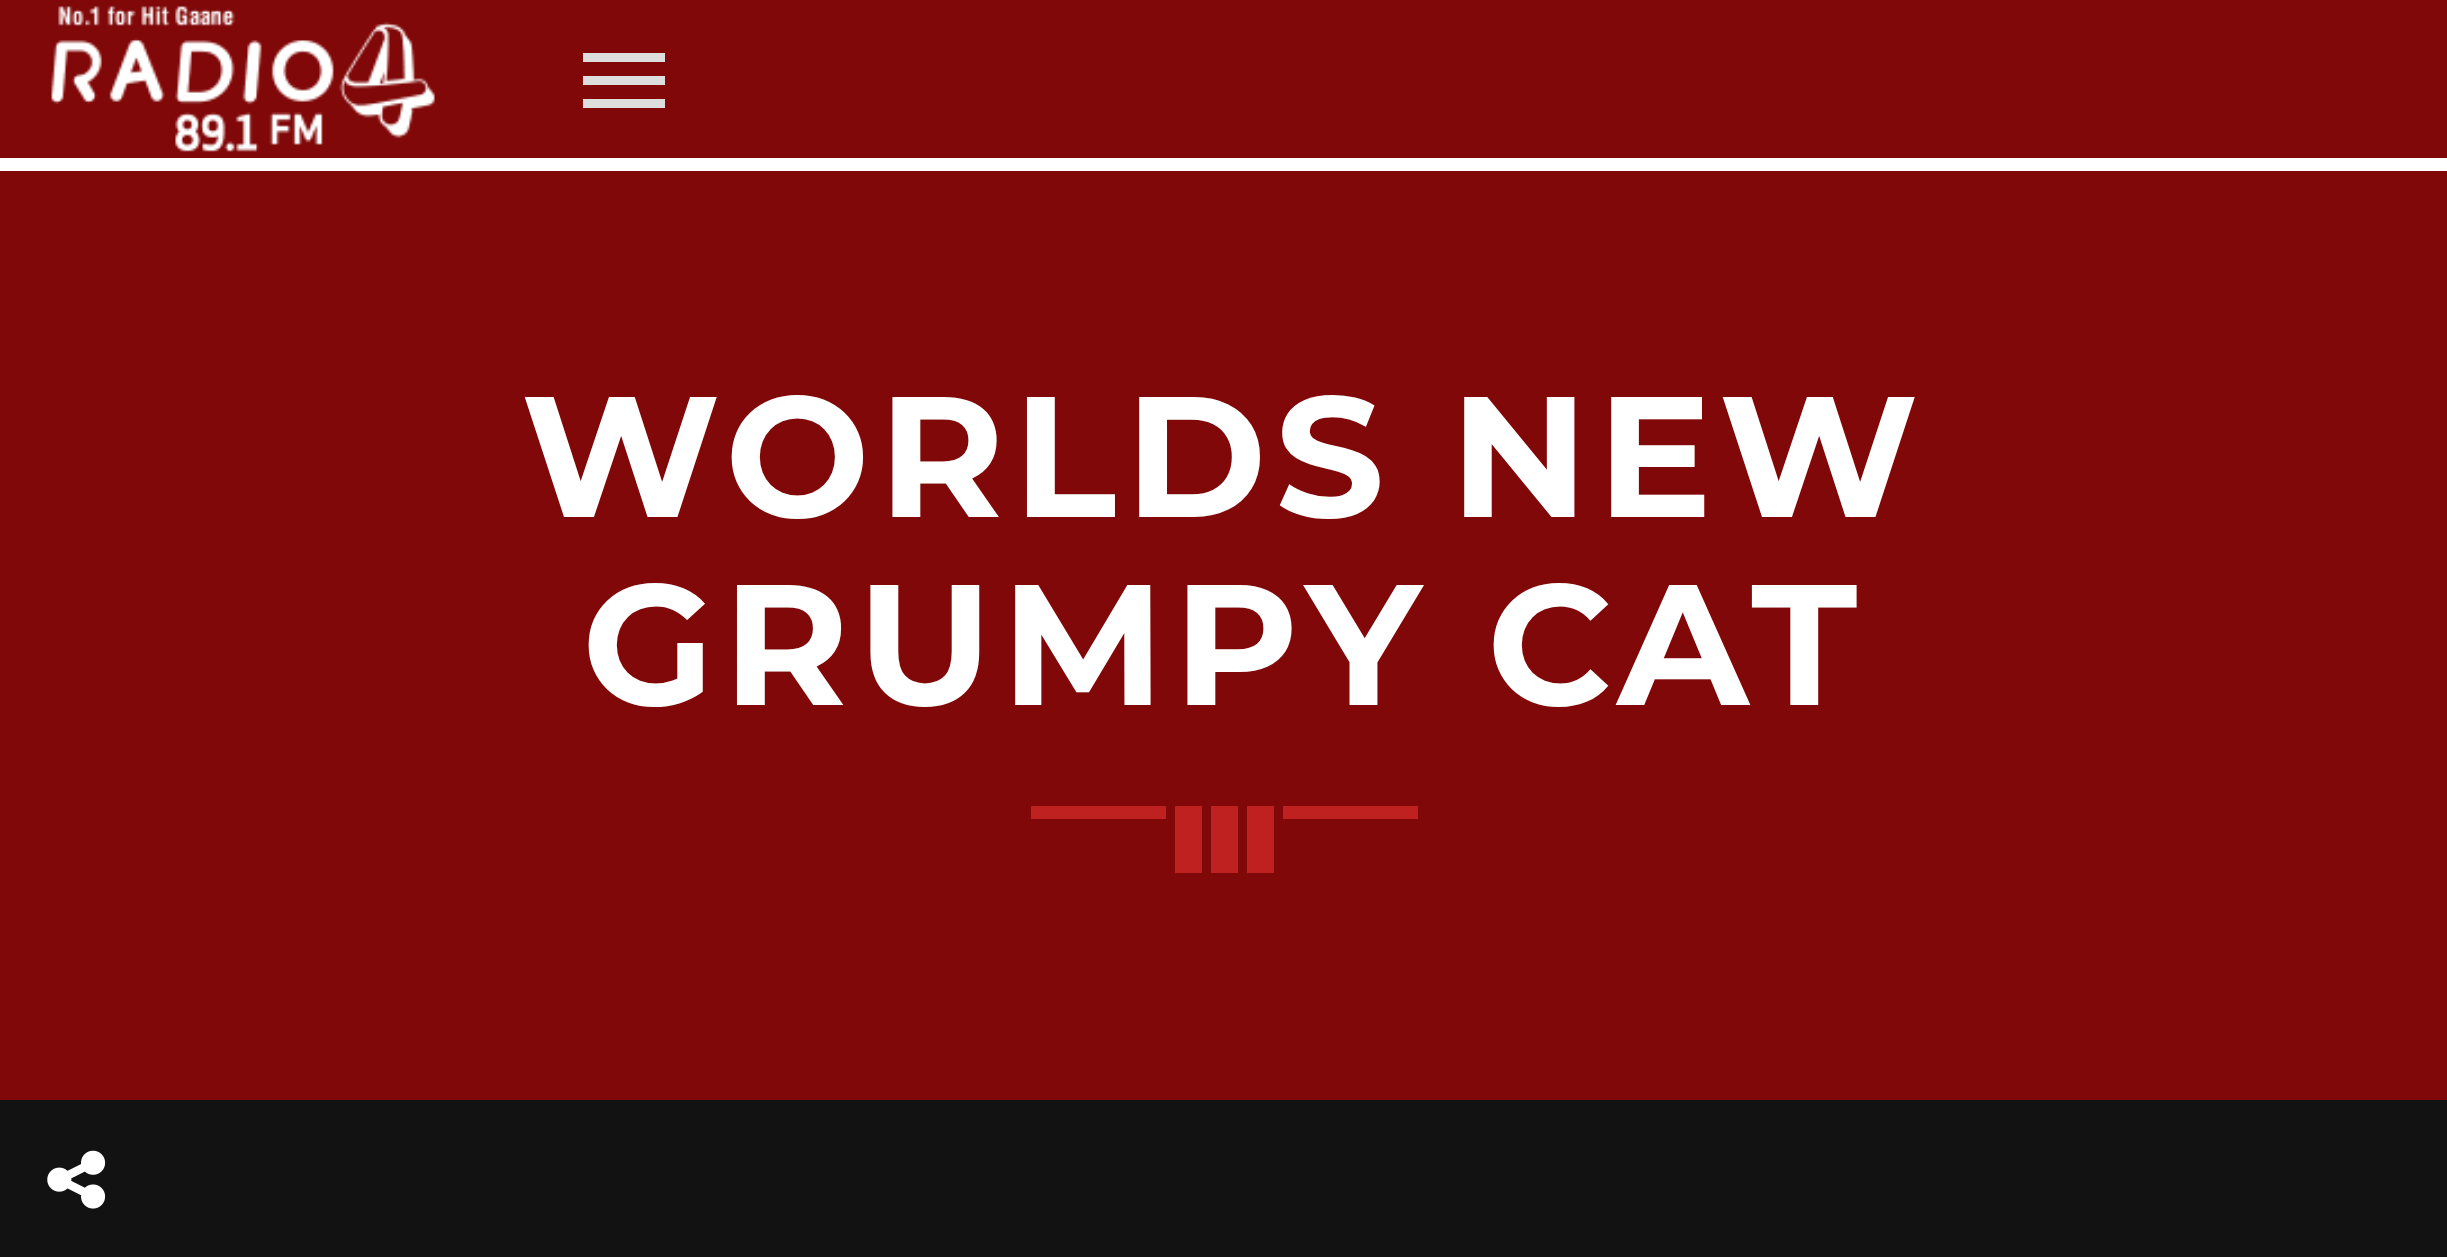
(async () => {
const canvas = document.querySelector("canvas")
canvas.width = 2447
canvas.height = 1257
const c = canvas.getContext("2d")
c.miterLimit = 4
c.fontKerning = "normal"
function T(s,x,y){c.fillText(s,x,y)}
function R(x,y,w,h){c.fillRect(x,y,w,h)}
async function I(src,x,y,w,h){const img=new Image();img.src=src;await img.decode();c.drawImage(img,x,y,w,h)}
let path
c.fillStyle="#810808"
R(0,0,2447,1257)
await I("1.png",51,6,384,146)
c.fillStyle="#dedede"
path = new Path2D("M583 108h82v-9h-82zm0-23h82v-9h-82zm0-32v9h82v-9z")
c.fill(path)
c.fillStyle="#121212"
R(0,1100,2447,157)
await I("2.png",47,1150,59,59)
c.fillStyle="#fff"
R(0,158,2447,13)
c.letterSpacing="8.5px"
c.font="bold 171.5px Montserrat"
T("WORLDS NEW",521,517)
T("GRUMPY CAT",582,705)
c.fillStyle="#bf2020"
R(1031,806,135,13)
R(1211,806,27,67)
R(1175,806,27,67)
R(1247,806,27,67)
R(1283,806,135,13)
})()
